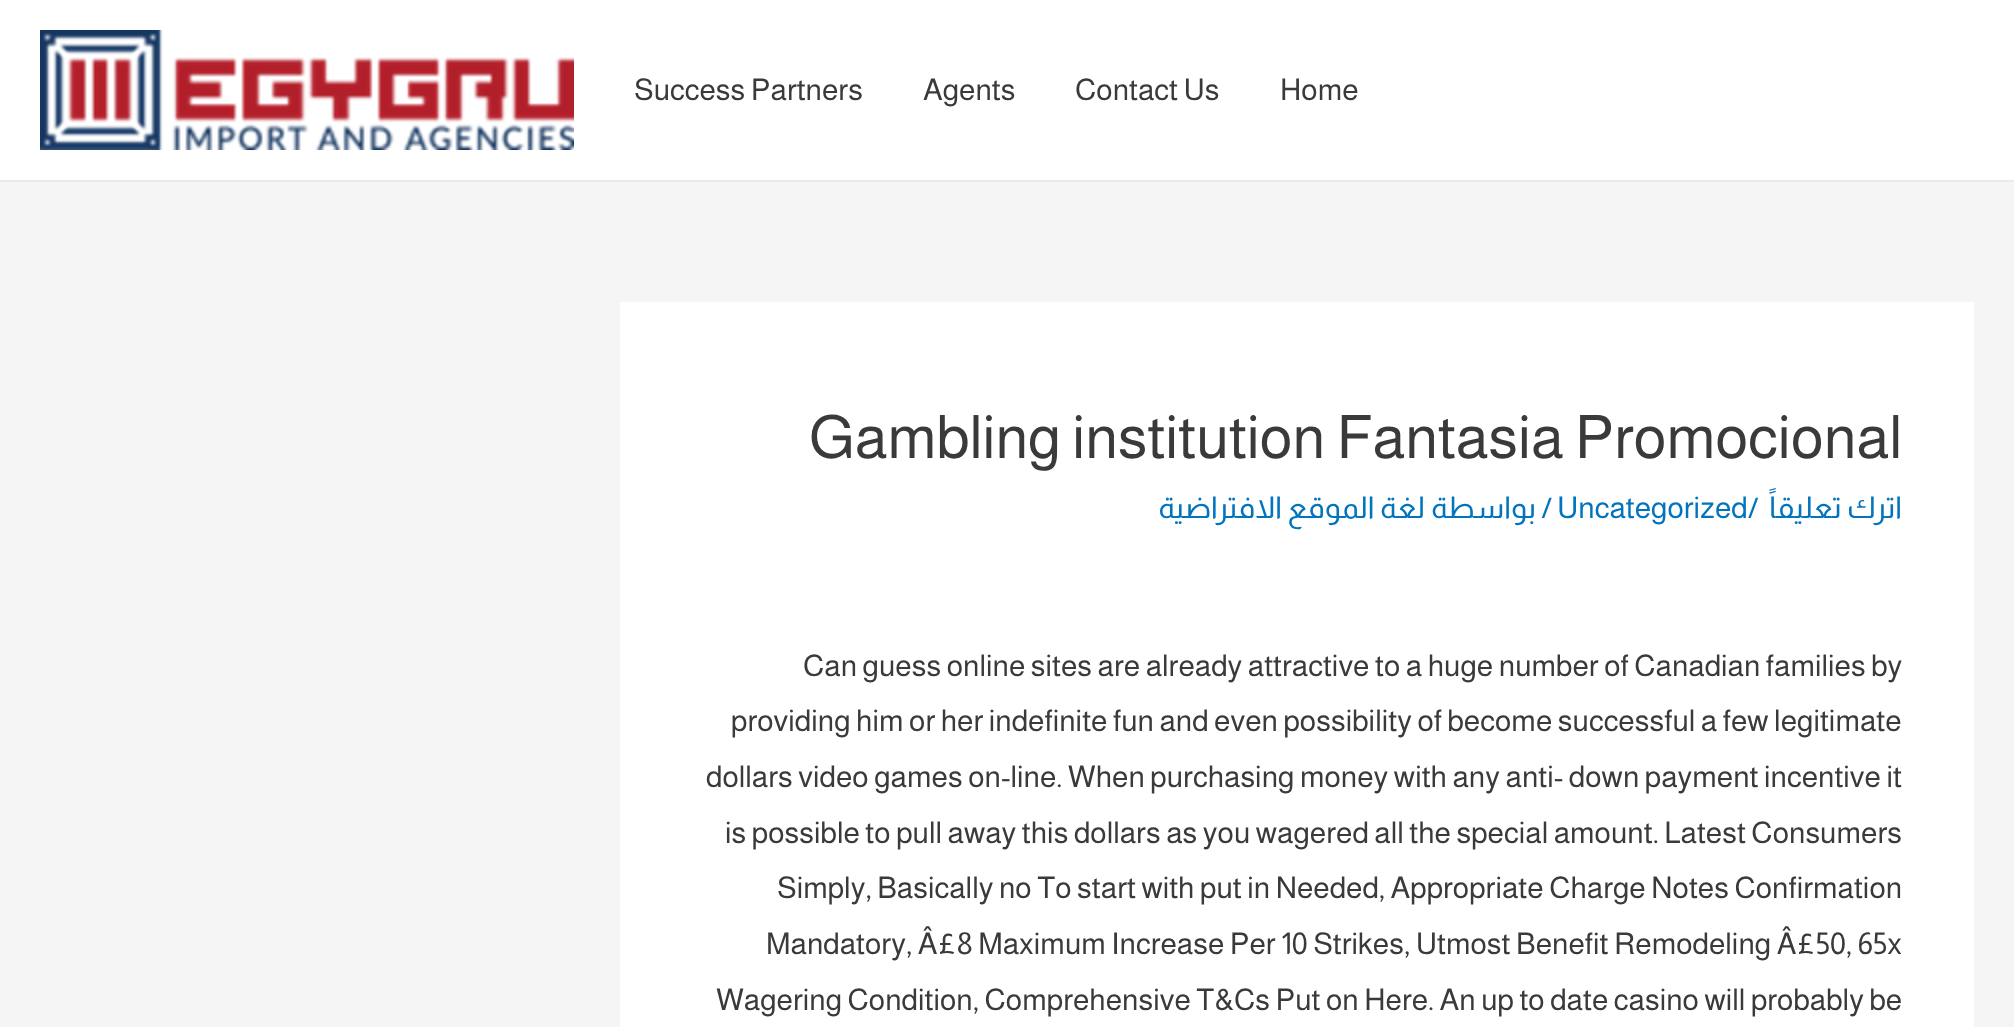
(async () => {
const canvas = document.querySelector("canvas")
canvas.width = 2014
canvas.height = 1027
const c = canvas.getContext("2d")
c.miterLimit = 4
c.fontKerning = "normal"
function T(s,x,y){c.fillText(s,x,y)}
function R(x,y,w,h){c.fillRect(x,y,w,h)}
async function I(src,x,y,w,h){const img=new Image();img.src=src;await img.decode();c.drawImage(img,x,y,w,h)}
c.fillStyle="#f5f5f5"
R(0,0,2014,1027)
c.fillStyle="#fff"
R(0,0,2014,180)
c.fillStyle="#eaeaea"
R(0,180,2014,2)
await I("1.png",40,30,534,120)
c.font="30px Almarai"
c.fillStyle="#3a3a3a"
T("Success Partners",634,100)
T("Agents",923,100)
T("Contact Us",1075,100)
T("Home",1280,100)
c.fillStyle="#fff"
R(620,302,1354,725)
c.font="60px Almarai"
c.fillStyle="#3a3a3a"
T("Gambling institution Fantasia Promocional",809,458)
c.direction="rtl"
c.font="30px Almarai"
c.fillStyle="#0274be"
T("لغة الموقع الافتراضية",1425,518)
T("/ بواسطة",1552,518)
c.direction="ltr"
T("Uncategorized",1557,518)
T("/",1748,518)
c.direction="rtl"
T("اترك تعليقاً",1902,518)
c.direction="ltr"
c.fillStyle="#3a3a3a"
T("Can guess online sites are already attractive to a huge number of Canadian families by",803,676)
T("providing him or her indefinite fun and even possibility of become successful a few legitimate",731,731)
T("dollars video games on-line. When purchasing money with any anti- down payment incentive it",706,787)
T("is possible to pull away this dollars as you wagered all the special amount. Latest Consumers",725,843)
T("Simply, Basically no To start with put in Needed, Appropriate Charge Notes Confirmation",777,898)
T("Mandatory, Â£8 Maximum Increase Per 10 Strikes, Utmost Benefit Remodeling Â£50, 65x",766,954)
T("Wagering Condition, Comprehensive T&Cs Put on Here. An up to date casino will probably be",716,1010)
})()
